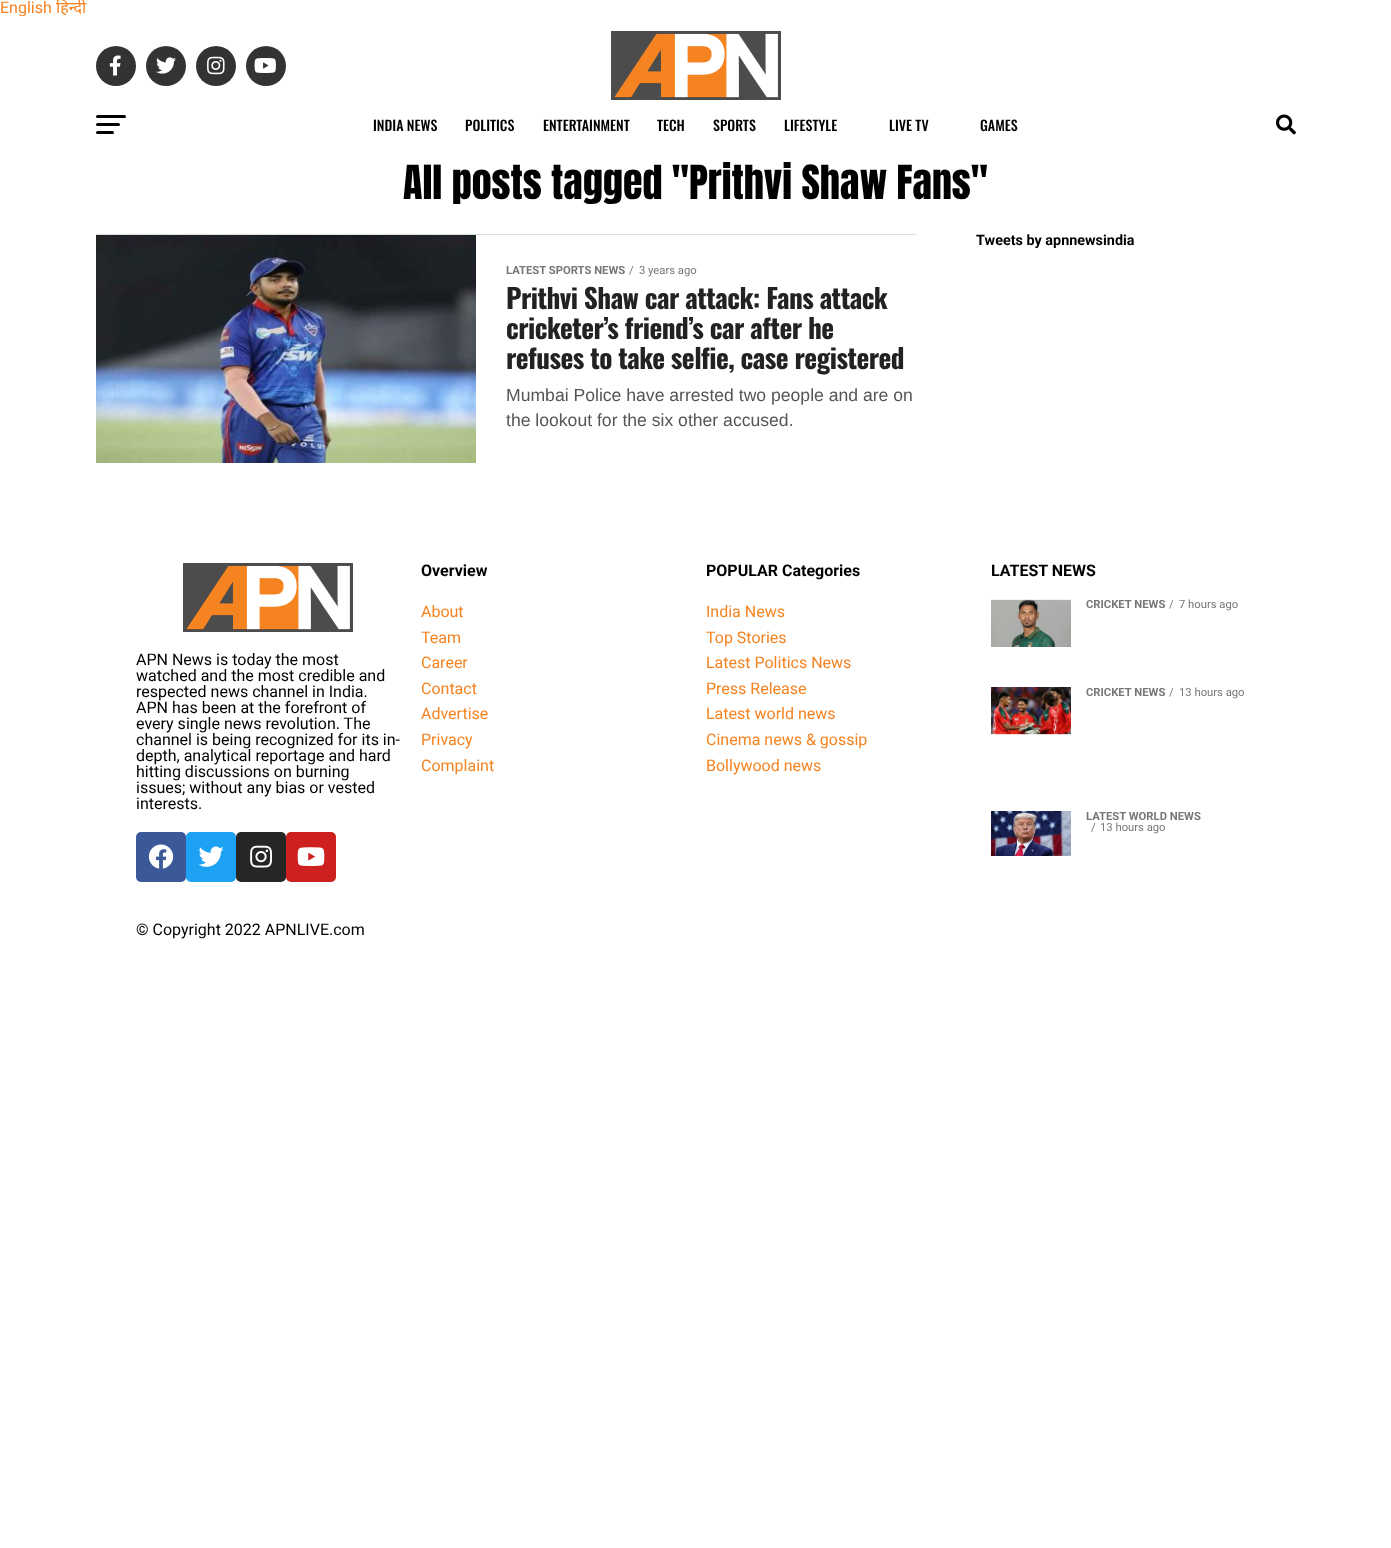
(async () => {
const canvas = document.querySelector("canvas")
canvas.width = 1391
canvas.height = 1548
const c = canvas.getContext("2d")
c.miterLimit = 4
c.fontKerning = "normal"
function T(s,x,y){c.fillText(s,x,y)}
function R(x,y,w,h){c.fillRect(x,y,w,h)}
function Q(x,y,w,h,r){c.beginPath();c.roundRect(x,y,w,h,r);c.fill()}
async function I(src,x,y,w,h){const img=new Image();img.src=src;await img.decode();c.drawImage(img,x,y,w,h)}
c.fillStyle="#fff"
R(0,0,1391,1548)
c.font="16px Roboto"
c.fillStyle="#f58320"
T("English",0,13)
c.font="16px Noto Sans"
T("हिन्दी",56,13)
c.fillStyle="#fff"
R(20,16,4,1)
c.fillStyle="#333"
c.beginPath()
c.arc(116,66,20,0,7)
c.fill()
await I("1.png",109,55,12,21)
c.beginPath()
c.arc(166,66,20,0,7)
c.fill()
await I("2.png",156,57,20,17)
c.beginPath()
c.arc(216,66,20,0,7)
c.fill()
await I("3.png",207,56,18,19)
c.beginPath()
c.arc(266,66,20,0,7)
c.fill()
await I("4.png",254,58,22,15)
await I("5.png",611,31,170,69)
c.fillStyle="#000"
Q(96,115,30,3,1.5)
Q(96,123,24,3,1.5)
Q(96,131,18,3,1.5)
c.font="500 14px Oswald"
T("INDIA NEWS",373,131)
T("POLITICS",465,131)
T("ENTERTAINMENT",543,131)
T("TECH",657,131)
T("SPORTS",713,131)
T("LIFESTYLE",784,131)
T("LIVE TV",889,131)
T("GAMES",980,131)
await I("6.png",1276,114,20,21)
c.font="40px Anton"
T("All posts tagged \"Prithvi Shaw Fans\"",403,199)
c.font="bold 14.4px Roboto"
T("Tweets by apnnewsindia",976,245)
c.fillStyle="#ddd"
R(96,234,820,1)
await I("7.png",96,235,380,228)
c.font="bold 11.25px Roboto"
c.fillStyle="#777"
T("LATEST SPORTS NEWS",506,274)
c.font="11.25px Roboto"
T("/",629,274)
T("3 years ago",639,274)
c.letterSpacing="-0.55px"
c.font="bold 27.25px Oswald"
c.fillStyle="#222"
T("Prithvi Shaw car attack: Fans attack",506,309)
T("cricketer’s friend’s car after he",506,339)
T("refuses to take selfie, case registered",506,369)
c.letterSpacing="0px"
c.font="17.6px Liberation Sans"
c.fillStyle="#555"
T("Mumbai Police have arrested two people and are on",506,401)
T("the lookout for the six other accused.",506,426)
await I("5.png",183,563,170,69)
c.font="16px Roboto"
c.fillStyle="#000"
T("APN News is today the most",136,665)
T("watched and the most credible and",136,681)
T("respected news channel in India.",136,697)
T("APN has been at the forefront of",136,713)
T("every single news revolution. The",136,729)
T("channel is being recognized for its in-",136,745)
T("depth, analytical reportage and hard",136,761)
T("hitting discussions on burning",136,777)
T("issues; without any bias or vested",136,793)
T("interests.",136,809)
c.fillStyle="#3b5998"
Q(136,832,50,50,5)
await I("8.png",148,844,26,25)
c.fillStyle="#1da1f2"
Q(186,832,50,50,5)
await I("9.png",198,846,26,21)
c.fillStyle="#262626"
Q(236,832,50,50,5)
await I("10.png",250,845,22,23)
c.fillStyle="#cd201f"
Q(286,832,50,50,5)
await I("11.png",297,847,28,19)
c.font="bold 16px Roboto"
c.fillStyle="#000"
T("Overview",421,576)
c.font="16px Roboto"
c.fillStyle="#f58320"
T("About",421,617)
T("Team",421,643)
T("Career",421,668)
T("Contact",421,694)
T("Advertise",421,719)
T("Privacy",421,745)
T("Complaint",421,771)
c.font="bold 16px Roboto"
c.fillStyle="#000"
T("POPULAR Categories",706,576)
c.font="16px Roboto"
c.fillStyle="#f58320"
T("India News",706,617)
T("Top Stories",706,643)
T("Latest Politics News",706,668)
T("Press Release",706,694)
T("Latest world news",706,719)
T("Cinema news & gossip",706,745)
T("Bollywood news",706,771)
c.font="bold 16px Roboto"
c.fillStyle="#000"
T("LATEST NEWS",991,576)
await I("12.png",991,599,80,48)
c.font="bold 11.25px Roboto"
c.fillStyle="#777"
T("CRICKET NEWS",1086,608)
c.font="11.25px Roboto"
T("/",1169,608)
T("7 hours ago",1179,608)
await I("13.png",991,687,80,48)
c.font="bold 11.25px Roboto"
T("CRICKET NEWS",1086,696)
c.font="11.25px Roboto"
T("/",1169,696)
T("13 hours ago",1179,696)
await I("14.png",991,811,80,45)
c.font="bold 11.25px Roboto"
T("LATEST WORLD NEWS",1086,820)
c.font="11.25px Roboto"
T("/",1091,831)
T("13 hours ago",1100,831)
c.font="16px Roboto"
c.fillStyle="#000"
T("© Copyright 2022 APNLIVE.com",136,935)
})()
